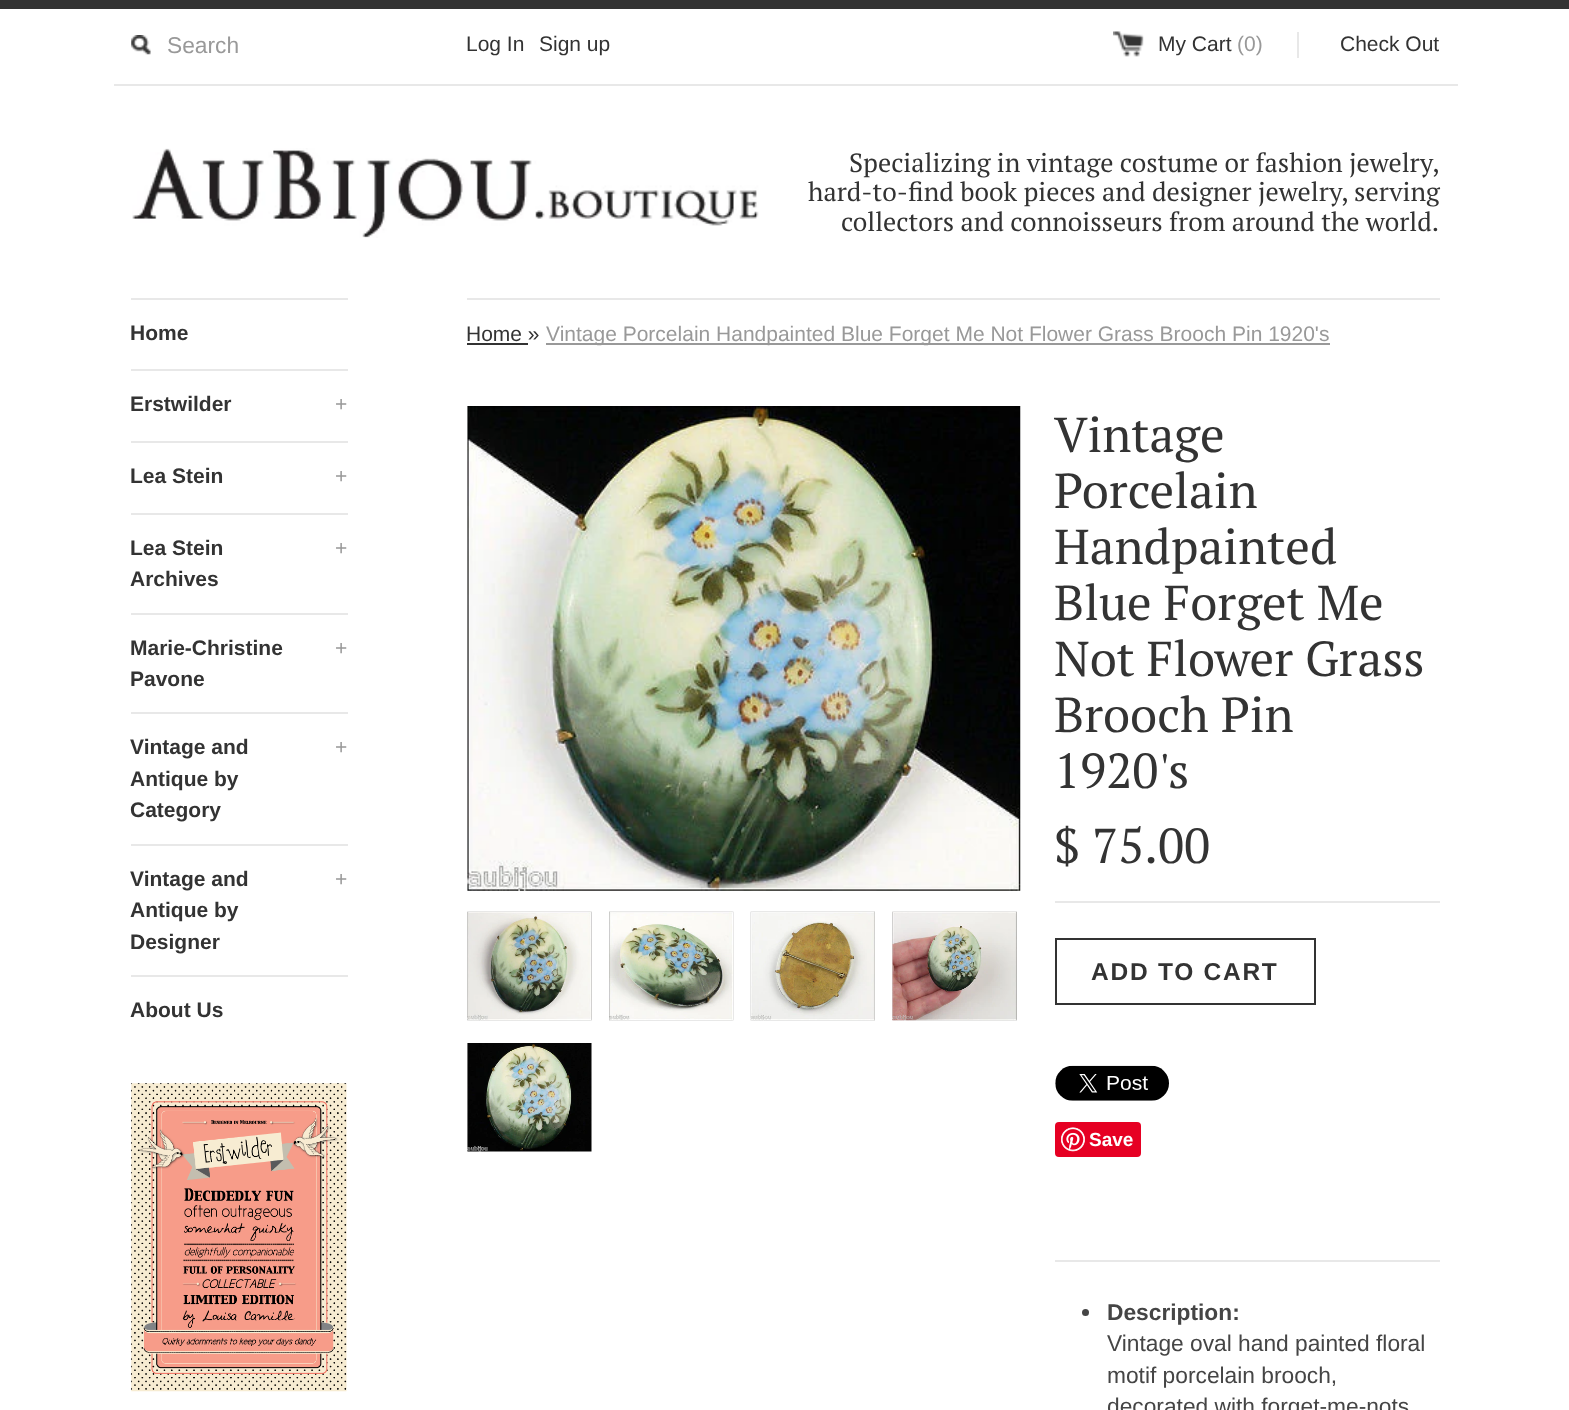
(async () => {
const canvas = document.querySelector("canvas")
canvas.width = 1569
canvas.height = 1410
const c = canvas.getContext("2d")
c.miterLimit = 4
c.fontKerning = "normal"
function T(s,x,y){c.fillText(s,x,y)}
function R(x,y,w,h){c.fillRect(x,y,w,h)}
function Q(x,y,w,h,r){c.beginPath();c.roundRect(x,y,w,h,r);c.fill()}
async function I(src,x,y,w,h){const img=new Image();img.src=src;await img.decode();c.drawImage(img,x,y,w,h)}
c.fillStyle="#fff"
R(0,0,1569,1410)
c.fillStyle="#333"
R(0,0,1569,9)
c.fillStyle="#e8e8e8"
R(114,84,1344,2)
await I("1.png",131,35,20,20)
c.font="22.75px Liberation Sans"
c.fillStyle="#999"
T("Search",167,53)
c.font="21px Liberation Sans"
c.fillStyle="#333"
T("Log In",466,51)
T("Sign up",539,51)
await I("2.png",1113,31,31,26)
T("My Cart",1158,51)
c.fillStyle="#999"
T("(0)",1237,51)
c.fillStyle="#e8e8e8"
R(1297,32,2,26)
c.fillStyle="#333"
T("Check Out",1340,51)
await I("3.png",132,148,627,90)
c.font="26.25px PT Serif"
T("Specializing in vintage costume or fashion jewelry,",849,172)
T("hard-to-find book pieces and designer jewelry, serving",808,201)
T("collectors and connoisseurs from around the world.",841,231)
c.fillStyle="#e8e8e8"
R(131,298,217,2)
c.font="bold 21px Liberation Sans"
c.fillStyle="#333"
T("Home",130,340)
c.fillStyle="#e8e8e8"
R(131,369,217,2)
c.fillStyle="#333"
T("Erstwilder",130,411)
c.font="21px Liberation Sans"
c.fillStyle="#999"
T("+",335,411)
c.fillStyle="#e8e8e8"
R(131,441,217,2)
c.font="bold 21px Liberation Sans"
c.fillStyle="#333"
T("Lea Stein",130,483)
c.font="21px Liberation Sans"
c.fillStyle="#999"
T("+",335,483)
c.fillStyle="#e8e8e8"
R(131,513,217,2)
c.font="bold 21px Liberation Sans"
c.fillStyle="#333"
T("Lea Stein",130,555)
c.font="21px Liberation Sans"
c.fillStyle="#999"
T("+",335,555)
c.font="bold 21px Liberation Sans"
c.fillStyle="#333"
T("Archives",130,586)
c.fillStyle="#e8e8e8"
R(131,613,217,2)
c.fillStyle="#333"
T("Marie-Christine",130,655)
c.font="21px Liberation Sans"
c.fillStyle="#999"
T("+",335,655)
c.font="bold 21px Liberation Sans"
c.fillStyle="#333"
T("Pavone",130,686)
c.fillStyle="#e8e8e8"
R(131,712,217,2)
c.fillStyle="#333"
T("Vintage and",130,754)
c.font="21px Liberation Sans"
c.fillStyle="#999"
T("+",335,754)
c.font="bold 21px Liberation Sans"
c.fillStyle="#333"
T("Antique by",130,786)
T("Category",130,817)
c.fillStyle="#e8e8e8"
R(131,844,217,2)
c.fillStyle="#333"
T("Vintage and",130,886)
c.font="21px Liberation Sans"
c.fillStyle="#999"
T("+",335,886)
c.font="bold 21px Liberation Sans"
c.fillStyle="#333"
T("Antique by",130,917)
T("Designer",130,949)
c.fillStyle="#e8e8e8"
R(131,975,217,2)
c.fillStyle="#333"
T("About Us",130,1017)
await I("4.png",131,1083,216,309)
c.fillStyle="#e8e8e8"
R(467,298,973,2)
c.font="21px Liberation Sans"
c.fillStyle="#333"
T("Home »",466,341)
R(467,343,61,2)
c.fillStyle="#999"
R(546,343,784,2)
T("Vintage Porcelain Handpainted Blue Forget Me Not Flower Grass Brooch Pin 1920's",546,341)
await I("5.png",467,406,554,485)
await I("6.png",467,911,125,110)
await I("7.png",609,911,125,110)
await I("8.png",750,911,125,110)
await I("9.png",892,911,125,110)
await I("10.png",467,1043,125,109)
c.font="49px PT Serif"
c.fillStyle="#333"
T("Vintage",1054,452)
T("Porcelain",1054,508)
T("Handpainted",1054,564)
T("Blue Forget Me",1054,620)
T("Not Flower Grass",1054,676)
T("Brooch Pin",1054,732)
T("1920's",1054,788)
T("$ 75.00",1054,863)
c.fillStyle="#e8e8e8"
R(1055,901,385,2)
c.strokeStyle="#333"
c.lineWidth=2
c.strokeRect(1056,939,259,65)
c.letterSpacing="1.75px"
c.font="bold 24.5px Liberation Sans"
c.fillStyle="#333"
T("ADD TO CART",1091,980)
await I("11.png",1055,1065,114,36)
c.fillStyle="#e60023"
Q(1055,1122,86,35,4)
await I("12.png",1061,1127,24,25)
c.letterSpacing="0px"
c.font="bold 19px Liberation Sans"
c.fillStyle="#fff"
T("Save",1089,1146)
c.fillStyle="#e8e8e8"
R(1055,1260,385,2)
c.fillStyle="#454545"
c.beginPath()
c.arc(1085.5,1312.5,3.5,0,7)
c.fill()
c.font="bold 22.75px Liberation Sans"
T("Description:",1107,1320)
c.font="22.75px Liberation Sans"
T("Vintage oval hand painted floral",1107,1351)
T("motif porcelain brooch,",1107,1383)
T("decorated with forget-me-nots",1107,1414)
})()
